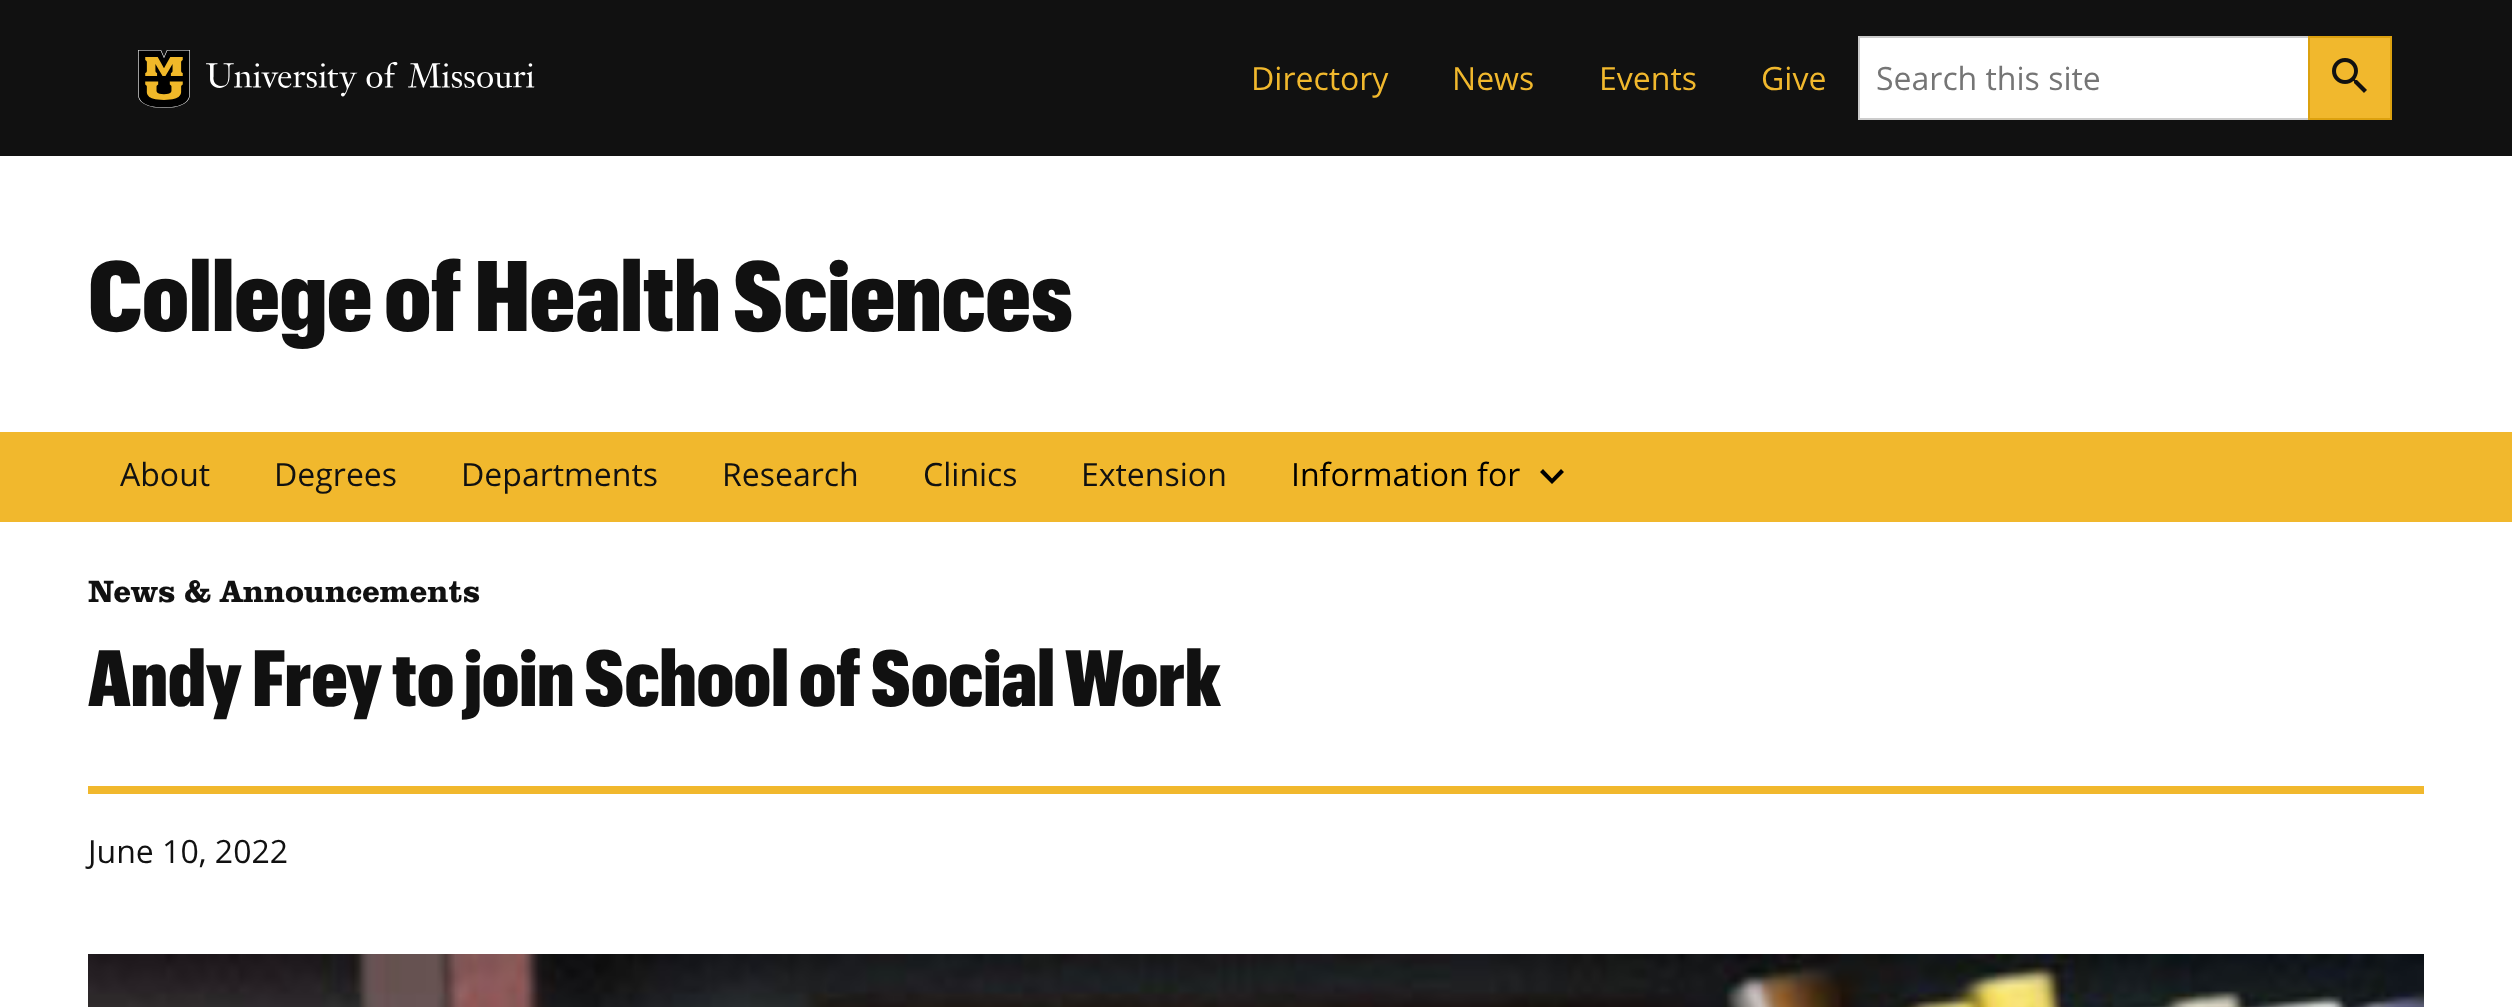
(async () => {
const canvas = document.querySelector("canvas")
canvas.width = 2512
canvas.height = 1007
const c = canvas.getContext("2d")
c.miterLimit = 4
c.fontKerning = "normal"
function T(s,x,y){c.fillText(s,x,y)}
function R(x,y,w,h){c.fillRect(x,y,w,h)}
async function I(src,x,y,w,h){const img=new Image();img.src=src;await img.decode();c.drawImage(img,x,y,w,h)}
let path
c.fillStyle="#fff"
R(0,0,2512,1007)
c.fillStyle="#111"
R(0,0,2512,156)
await I("1.png",138,50,52,58)
await I("2.png",206,62,329,35)
c.font="32px Open Sans"
c.fillStyle="#f1b82d"
T("Directory",1251,90)
T("News",1452,90)
T("Events",1599,90)
T("Give",1761,90)
c.fillStyle="#fff"
c.beginPath()
c.rect(1859,37,450,82)
c.fill()
c.strokeStyle="#ccc"
c.lineWidth=2
c.stroke()
c.fillStyle="#757575"
T("Search this site",1876,90)
c.fillStyle="#f1b82d"
c.beginPath()
c.rect(2309,37,82,82)
c.fill()
c.strokeStyle="#dca10f"
c.stroke()
await I("3.png",2332,58,35,35)
c.font="800 97.75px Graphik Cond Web"
c.fillStyle="#111"
T("College of Health Sciences",88,331)
c.fillStyle="#f1b82d"
R(0,432,2512,90)
c.font="32px Open Sans"
c.fillStyle="#111"
T("About",120,486)
T("Degrees",274,486)
T("Departments",461,486)
T("Research",722,486)
T("Clinics",923,486)
T("Extension",1081,486)
c.fillStyle="#000"
T("Information for",1291,486)
path = new Path2D("M1561 469l3 3l-12 12l-12-12l3-3l9 9.5z")
c.fill(path)
c.font="32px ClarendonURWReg"
c.fillStyle="#111"
T("News & Announcements",88,602)
c.font="800 78.1px Graphik Cond Web"
T("Andy Frey to join School of Social Work",88,706)
c.fillStyle="#f1b82d"
R(88,786,2336,8)
c.font="32px Open Sans"
c.fillStyle="#111"
T("June 10, 2022",88,863)
await I("4.png",88,954,2336,53)
})()
